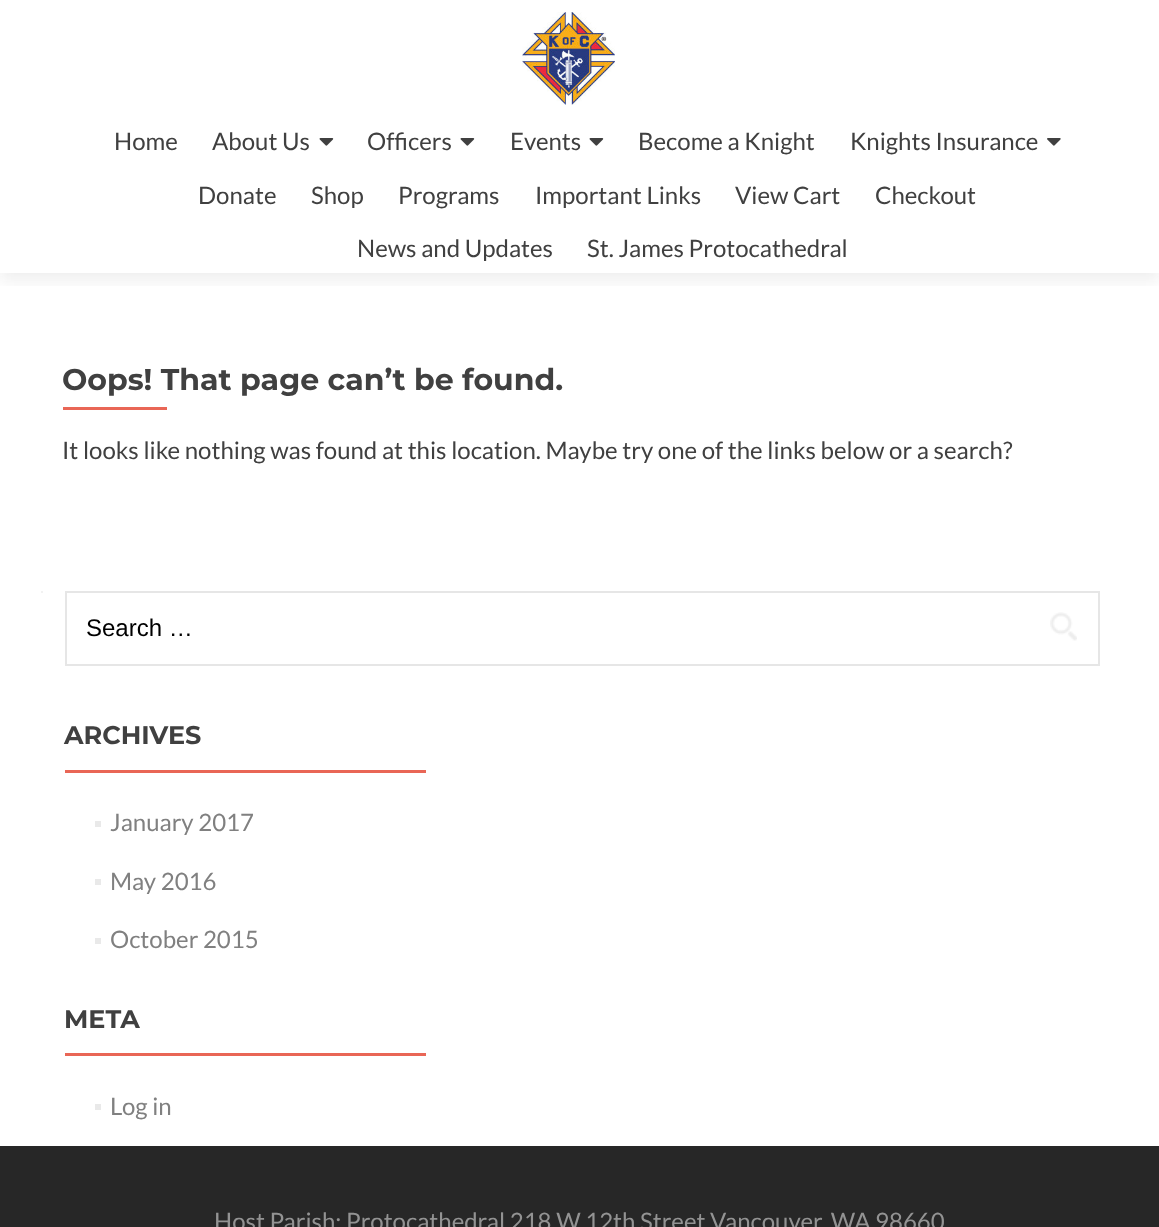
(async () => {
const canvas = document.querySelector("canvas")
canvas.width = 1159
canvas.height = 1227
const c = canvas.getContext("2d")
c.miterLimit = 4
c.fontKerning = "normal"
function T(s,x,y){c.fillText(s,x,y)}
function R(x,y,w,h){c.fillRect(x,y,w,h)}
async function I(src,x,y,w,h){const img=new Image();img.src=src;await img.decode();c.drawImage(img,x,y,w,h)}
c.fillStyle="#fff"
R(0,0,1159,1227)
c.save()
c.beginPath()
c.rect(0,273,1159,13)
c.clip()
c.fillStyle="#32323214"
c.filter="blur(8px)"
c.beginPath()
c.rect(0,8,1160,273)
c.fill()
c.filter="none"
c.restore()
await I("1.png",522,12,93,93)
c.font="24px Lato"
c.fillStyle="#404040"
T("Home",114,150)
T("About Us",212,150)
await I("2.png",319,138,15,8)
T("Officers",367,150)
await I("2.png",460,138,15,8)
T("Events",510,150)
await I("2.png",589,138,15,8)
T("Become a Knight",638,150)
T("Knights Insurance",850,150)
await I("3.png",1047,138,14,8)
T("Donate",198,204)
T("Shop",311,204)
T("Programs",398,204)
T("Important Links",535,204)
T("View Cart",735,204)
T("Checkout",875,204)
T("News and Updates",357,257)
T("St. James Protocathedral",587,257)
c.font="bold 30px Montserrat"
T("Oops! That page can’t be found.",62,390)
c.fillStyle="#e96656"
R(63,407,104,3)
c.font="24px Lato"
c.fillStyle="#404040"
T("It looks like nothing was found at this location. Maybe try one of the links below or a search?",62,459)
c.fillStyle="#f2f2f2"
R(41,591,2,2)
c.strokeStyle="#e6e6e6"
c.lineWidth=2
c.strokeRect(66,592,1033,73)
c.font="24px Liberation Sans"
c.fillStyle="#000"
T("Search …",86,636)
await I("4.png",1050,612,27,29)
c.font="bold 25.5px Montserrat"
c.fillStyle="#404040"
T("ARCHIVES",64,744)
c.fillStyle="#e96656"
R(65,770,361,3)
c.fillStyle="#e9e9e9"
R(95,821,6,6)
c.font="24px Lato"
c.fillStyle="#808080"
T("January 2017",110,831)
c.fillStyle="#e9e9e9"
R(95,879,6,6)
c.fillStyle="#808080"
T("May 2016",110,890)
c.fillStyle="#e9e9e9"
R(95,938,6,6)
c.fillStyle="#808080"
T("October 2015",110,948)
c.font="bold 25.5px Montserrat"
c.fillStyle="#404040"
T("META",64,1028)
c.fillStyle="#e96656"
R(65,1053,361,3)
c.fillStyle="#e9e9e9"
R(95,1104,6,6)
c.font="24px Lato"
c.fillStyle="#808080"
T("Log in",110,1115)
c.fillStyle="#272727"
R(0,1146,1159,81)
c.fillStyle="#939393"
T("Host Parish: Protocathedral 218 W 12th Street Vancouver, WA 98660",214,1230)
})()
